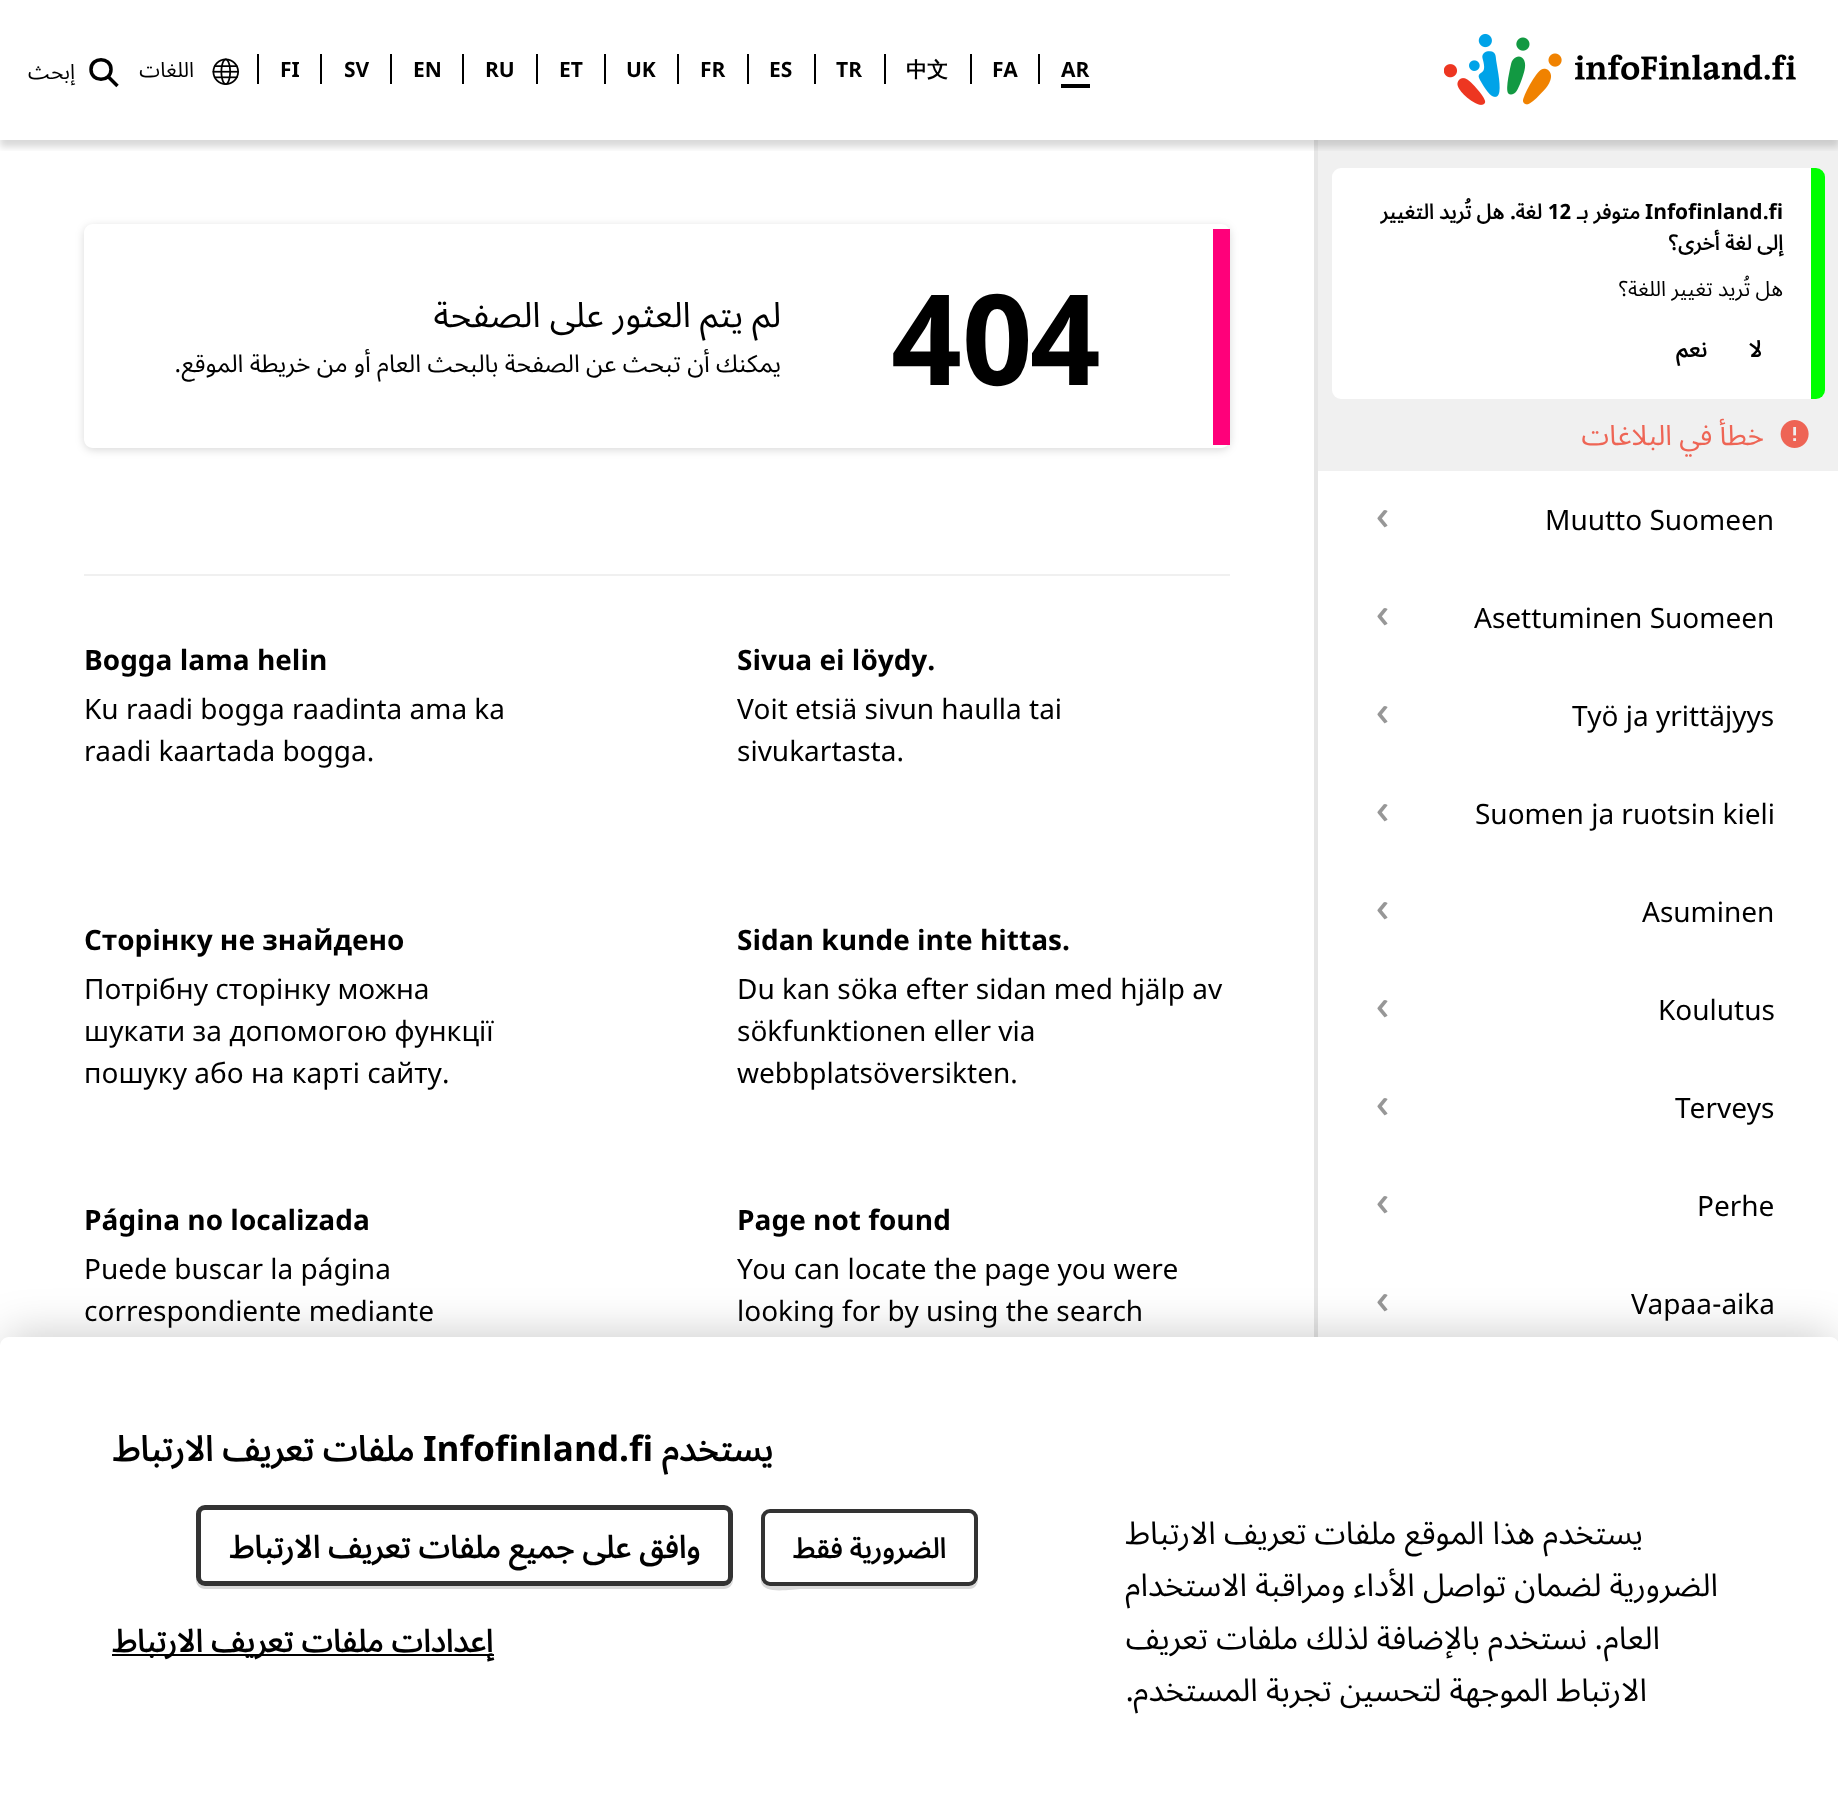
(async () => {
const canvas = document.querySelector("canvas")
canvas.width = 1838
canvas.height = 1812
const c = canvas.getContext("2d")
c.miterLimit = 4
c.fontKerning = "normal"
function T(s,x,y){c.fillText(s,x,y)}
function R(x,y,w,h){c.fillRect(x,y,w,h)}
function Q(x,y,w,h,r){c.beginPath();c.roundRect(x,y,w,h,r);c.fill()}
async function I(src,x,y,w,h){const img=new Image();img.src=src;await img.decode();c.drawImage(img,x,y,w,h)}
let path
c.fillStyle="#fff"
R(0,0,1838,1812)
c.fillStyle="#e6e6e6"
R(1314,140,4,1197)
c.fillStyle="#f0f0f0"
R(1318,140,520,331)
c.save()
c.beginPath()
c.rect(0,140,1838,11)
c.clip()
c.fillStyle="#00000026"
c.filter="blur(3.5px)"
c.beginPath()
c.rect(0,7,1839,140)
c.fill()
c.filter="none"
c.restore()
c.direction="rtl"
c.font="21px Noto Sans Arabic"
c.fillStyle="#000"
T("إبحث",75,79)
path = new Path2D("M111 69.5c0 13-20 13-20 0c0-13 20-13 20 0zm-3 7l9.5 9.5")
c.strokeStyle="#000"
c.lineWidth=3.5
c.stroke(path)
T("اللغات",194,77)
await I("1.png",212,58,27,27)
c.direction="ltr"
c.font="bold 21px Noto Sans"
T("FI",280,77)
R(257,54,2,30)
T("SV",344,77)
R(320,54,2,30)
T("EN",413,77)
R(390,54,2,30)
T("RU",485,77)
R(462,54,2,30)
T("ET",559,77)
R(536,54,2,30)
T("UK",626,77)
R(604,54,2,30)
T("FR",700,77)
R(677,54,2,30)
T("ES",769,77)
R(747,54,2,30)
T("TR",836,77)
R(814,54,2,30)
c.font="bold 21px WenQuanYi Zen Hei"
T("中文",906,77)
R(884,54,2,30)
c.font="bold 21px Noto Sans"
T("FA",992,77)
R(970,54,2,30)
T("AR",1061,77)
R(1038,54,2,30)
R(1061,84,29,4)
await I("2.png",1444,33,352,72)
c.save()
path = new Path2D("M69 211h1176v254h-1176zm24 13h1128c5 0 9 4 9 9v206c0 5-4 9-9 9h-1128c-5 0-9-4-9-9v-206c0-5 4-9 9-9z")
c.clip(path,"evenodd")
c.fillStyle="#00000026"
c.filter="blur(4.5px)"
c.beginPath()
c.roundRect(84,226,1146,224,9)
c.fill()
c.filter="none"
c.restore()
c.fillStyle="#ff007a"
R(1213,229,17,216)
c.direction="rtl"
c.font="35px Noto Sans Arabic"
c.fillStyle="#000"
T("لم يتم العثور على الصفحة",781,327)
c.font="24.5px Noto Sans"
T(".",181,372)
c.font="24.5px Noto Sans Arabic"
T("يمكنك أن تبحث عن الصفحة بالبحث العام أو من خريطة الموقع",781,372)
c.direction="ltr"
c.font="bold 126px Noto Sans"
T("404",893,385)
c.fillStyle="#f0f0f0"
R(84,574,1146,2)
c.font="bold 28px Noto Sans"
c.fillStyle="#000"
T("Bogga lama helin",84,670)
c.font="28px Noto Sans"
T("Ku raadi bogga raadinta ama ka",84,719)
T("raadi kaartada bogga.",84,761)
c.font="bold 28px Noto Sans"
T("Sivua ei löydy.",737,670)
c.font="28px Noto Sans"
T("Voit etsiä sivun haulla tai",737,719)
T("sivukartasta.",737,761)
c.font="bold 28px Noto Sans"
T("Сторінку не знайдено",84,950)
c.font="28px Noto Sans"
T("Потрібну сторінку можна",84,999)
T("шукати за допомогою функції",84,1041)
T("пошуку або на карті сайту.",84,1083)
c.font="bold 28px Noto Sans"
T("Sidan kunde inte hittas.",737,950)
c.font="28px Noto Sans"
T("Du kan söka efter sidan med hjälp av",737,999)
T("sökfunktionen eller via",737,1041)
T("webbplatsöversikten.",737,1083)
c.font="bold 28px Noto Sans"
T("Página no localizada",84,1230)
c.font="28px Noto Sans"
T("Puede buscar la página",84,1279)
T("correspondiente mediante",84,1321)
c.font="bold 28px Noto Sans"
T("Page not found",737,1230)
c.font="28px Noto Sans"
T("You can locate the page you were",737,1279)
T("looking for by using the search",737,1321)
c.fillStyle="#fff"
Q(1332,168,493,231,9)
c.direction="rtl"
c.font="bold 21px Noto Sans Arabic"
c.fillStyle="#000"
T("هل تُريد التغيير",1504,219)
c.font="bold 21px Noto Sans"
T(".",1516,219)
c.font="bold 21px Noto Sans Arabic"
T("لغة",1542,219)
c.direction="ltr"
c.font="bold 21px Noto Sans"
T("12",1548,219)
c.direction="rtl"
c.font="bold 21px Noto Sans Arabic"
T("متوفر بـ",1640,219)
c.direction="ltr"
c.font="bold 21px Noto Sans"
T("Infofinland.fi",1645,219)
c.direction="rtl"
c.font="bold 21px Noto Sans Arabic"
T("إلى لغة أخرى؟",1783,250)
c.font="21px Noto Sans Arabic"
T("هل تُريد تغيير اللغة؟",1783,296)
c.font="bold 23px Noto Sans Arabic"
T("نعم",1707,357)
T("لا",1762,357)
c.fillStyle="#0f0"
c.beginPath()
c.roundRect(1811,168,14,231,[0,9,9,0])
c.fill()
c.font="28px Noto Sans Arabic"
c.fillStyle="#ee6555"
T("خطأ في البلاغات",1764,445)
await I("3.png",1780,420,29,28)
await I("4.png",1377,510,11,18)
c.direction="ltr"
c.font="28px Noto Sans"
c.fillStyle="#000"
T("Muutto Suomeen",1545,530)
await I("4.png",1377,608,11,18)
T("Asettuminen Suomeen",1474,628)
await I("4.png",1377,706,11,18)
T("Työ ja yrittäjyys",1572,726)
await I("4.png",1377,804,11,18)
T("Suomen ja ruotsin kieli",1475,824)
await I("4.png",1377,902,11,18)
T("Asuminen",1642,922)
await I("4.png",1377,1000,11,18)
T("Koulutus",1658,1020)
await I("4.png",1377,1098,11,18)
T("Terveys",1675,1118)
await I("4.png",1377,1196,11,18)
T("Perhe",1697,1216)
await I("4.png",1377,1294,11,18)
T("Vapaa-aika",1631,1314)
c.fillStyle="#00000033"
c.filter="blur(22px)"
c.beginPath()
c.roundRect(7,1334,1825,462,2)
c.fill()
c.filter="none"
c.fillStyle="#fff"
path = new Path2D("M9 1337h1821c5 0 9 4 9 9v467h-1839v-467c0-5 4-9 9-9z")
c.fill(path)
c.direction="rtl"
c.font="bold 35px Noto Sans Arabic"
c.fillStyle="#000"
T("ملفات تعريف الارتباط",414,1461)
c.direction="ltr"
c.font="bold 35px Noto Sans"
T("Infofinland.fi",423,1461)
c.direction="rtl"
c.font="bold 35px Noto Sans Arabic"
T("يستخدم",773,1461)
c.fillStyle="#d9d9d9"
path = new Path2D("M196 1577v3c0 5 4 9 9 9h519c5 0 9-4 9-9v-1c-1 4-4 7-9 7h-519c-5 0-9-4-9-9z")
c.fill(path)
c.fillStyle="#fff"
c.beginPath()
c.roundRect(198.5,1507.5,532,76,6.5)
c.fill()
c.strokeStyle="#333"
c.lineWidth=5
c.stroke()
c.font="bold 31.5px Noto Sans Arabic"
c.fillStyle="#000"
T("وافق على جميع ملفات تعريف الارتباط",700,1558)
c.fillStyle="#d9d9d9"
path = new Path2D("M761 1519v63c3 13 29 7 42 7h166c6 0 9-5 9-10c-1 4-4 7-8 7h-200c-5 0-9-4-9-9z")
c.fill(path)
c.fillStyle="#fff"
c.beginPath()
c.roundRect(763,1511,213,73,7)
c.fill()
c.lineWidth=4
c.stroke()
c.font="bold 28px Noto Sans Arabic"
c.fillStyle="#000"
T("الضرورية فقط",946,1558)
R(112,1654,382,2)
c.font="bold 31.5px Noto Sans Arabic"
T("إعدادات ملفات تعريف الارتباط",493,1652)
c.font="31.5px Noto Sans Arabic"
T("يستخدم هذا الموقع ملفات تعريف الارتباط",1643,1544)
T("الضرورية لضمان تواصل الأداء ومراقبة الاستخدام",1718,1596)
T("نستخدم بالإضافة لذلك ملفات تعريف",1587,1649)
c.font="31.5px Noto Sans"
T(".",1603,1649)
c.font="31.5px Noto Sans Arabic"
T("العام",1660,1649)
c.font="31.5px Noto Sans"
T(".",1134,1701)
c.font="31.5px Noto Sans Arabic"
T("الارتباط الموجهة لتحسين تجربة المستخدم",1647,1701)
})()
